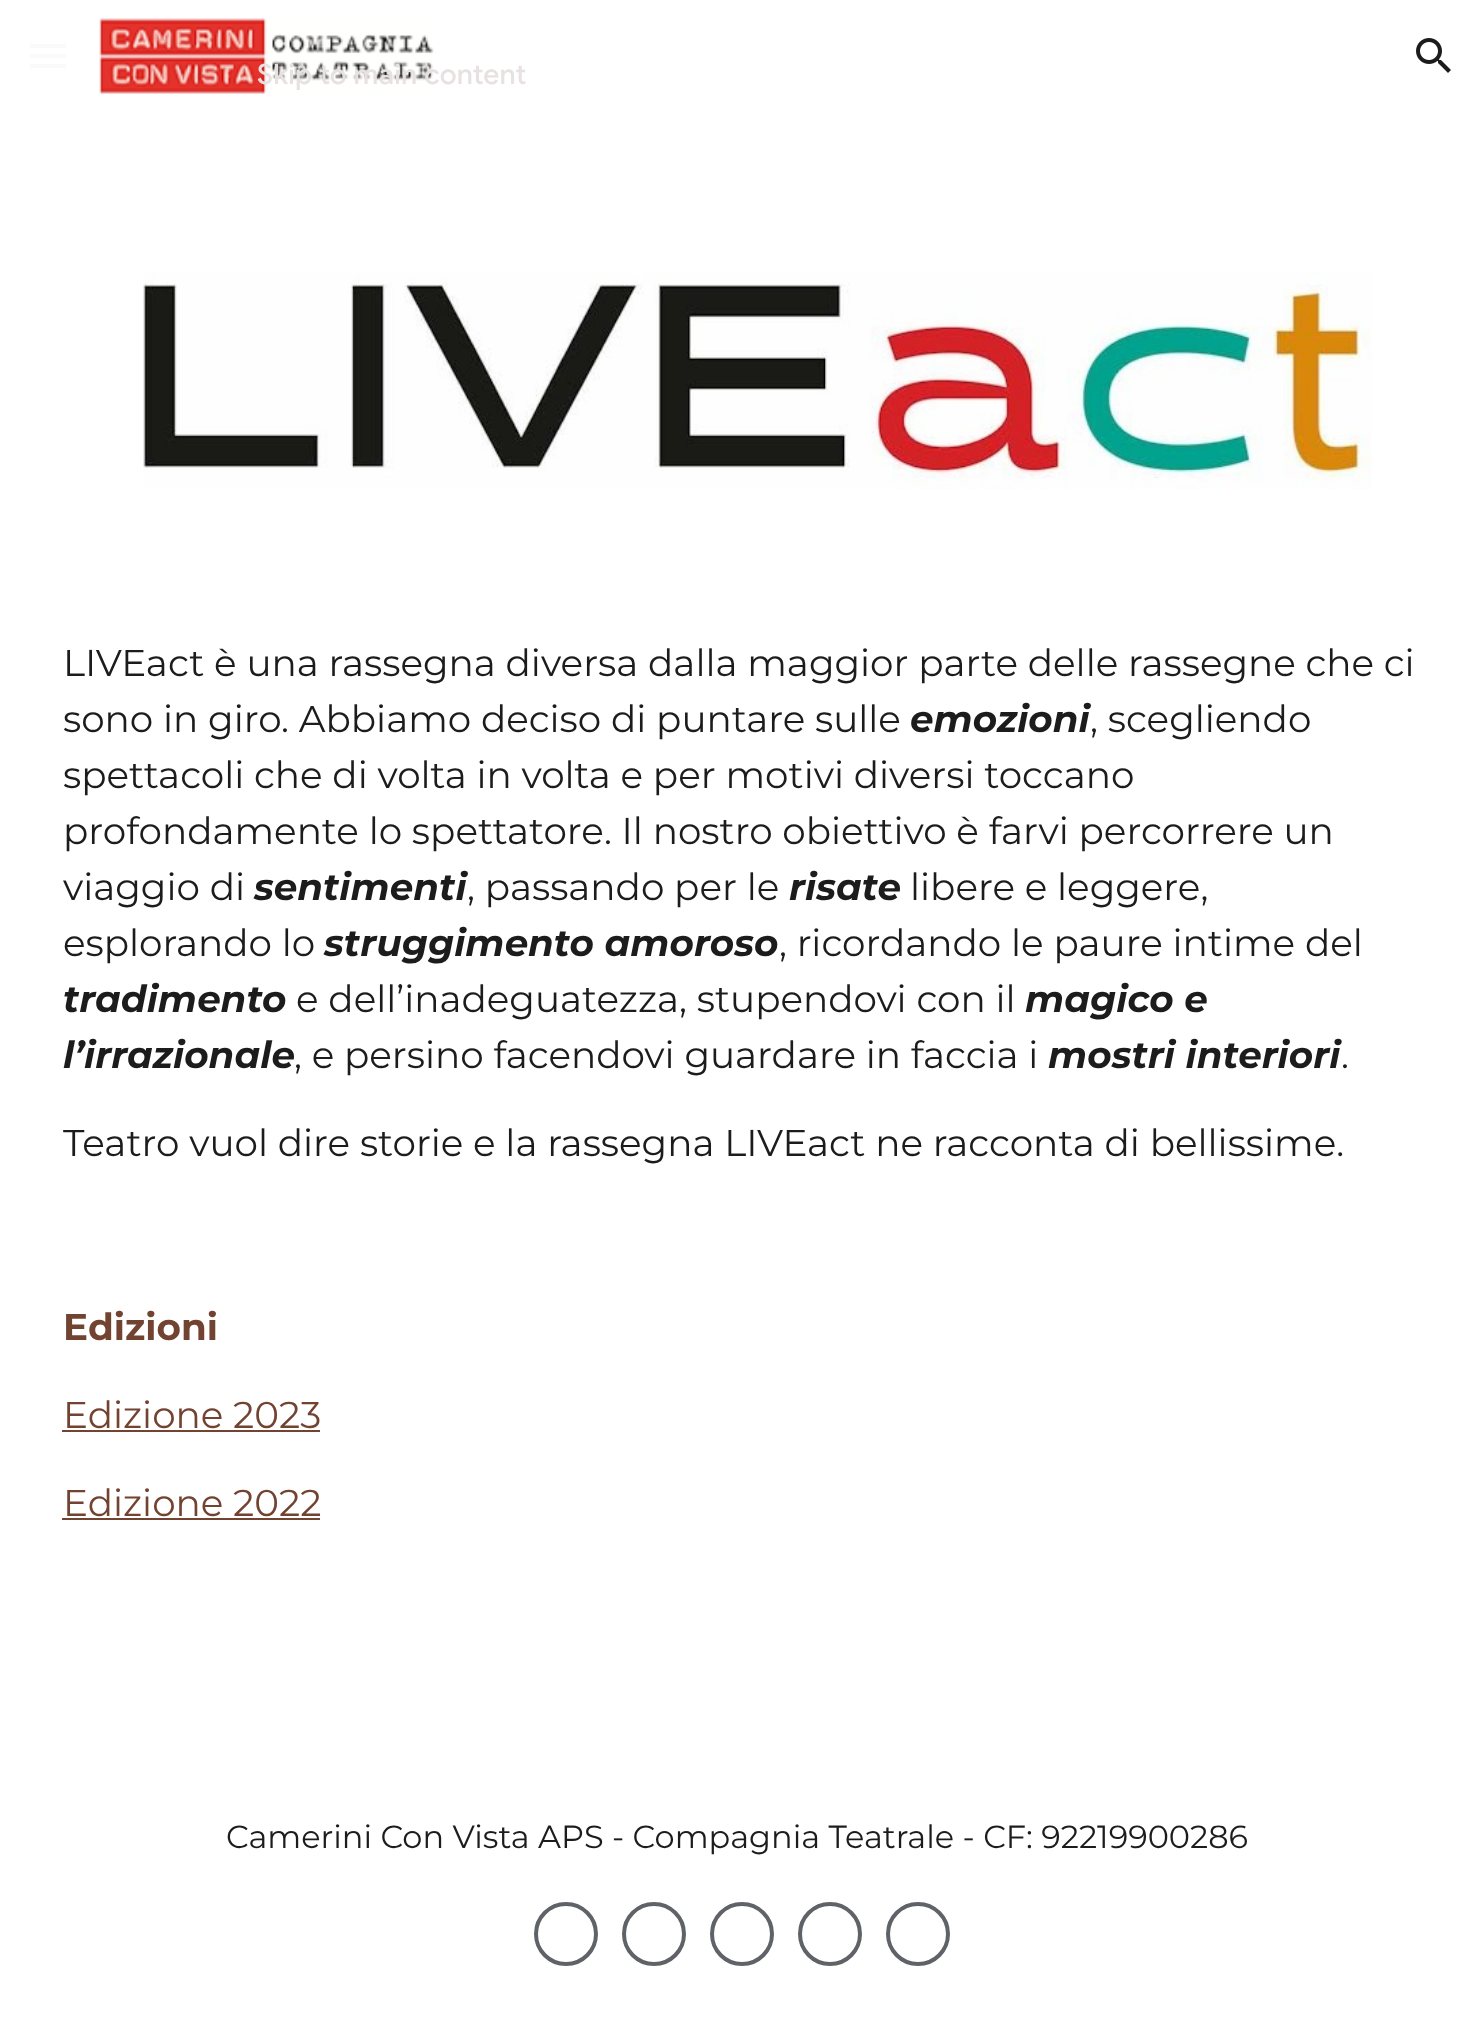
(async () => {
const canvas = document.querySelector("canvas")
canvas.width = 1481
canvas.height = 2026
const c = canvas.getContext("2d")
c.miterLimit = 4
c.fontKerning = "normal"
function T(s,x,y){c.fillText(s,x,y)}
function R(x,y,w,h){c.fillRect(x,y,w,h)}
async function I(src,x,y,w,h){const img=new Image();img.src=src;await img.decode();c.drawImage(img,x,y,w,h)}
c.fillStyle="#fff"
R(0,0,1481,2026)
await I("1.png",99,18,335,76)
c.letterSpacing="0.25px"
c.font="500 28px Google Sans"
c.fillStyle="#e8e1e1"
T("Skip to main content",257,84)
c.fillStyle="#fafafa"
R(30,44,36,4)
R(30,54,36,4)
R(30,64,36,4)
await I("2.png",1416,38,35,35)
await I("3.png",143,272,1229,217)
c.letterSpacing="0px"
c.font="37.35px Montserrat"
c.fillStyle="#1c1c1c"
T("LIVEact è una rassegna diversa dalla maggior parte delle rassegne che ci",63,676)
T("sono in giro. Abbiamo deciso di puntare sulle",63,732)
c.font="italic bold 37.35px Montserrat"
T("emozioni",910,732)
c.font="37.35px Montserrat"
T(", scegliendo",1090,732)
T("spettacoli che di volta in volta e per motivi diversi toccano",63,788)
T("profondamente lo spettatore. Il nostro obiettivo è farvi percorrere un",63,844)
T("viaggio di",63,900)
c.font="italic bold 37.35px Montserrat"
T("sentimenti",254,900)
c.font="37.35px Montserrat"
T(", passando per le",467,900)
c.font="italic bold 37.35px Montserrat"
T("risate",789,900)
c.font="37.35px Montserrat"
T("libere e leggere,",910,900)
T("esplorando lo",63,956)
c.font="italic bold 37.35px Montserrat"
T("struggimento amoroso",324,956)
c.font="37.35px Montserrat"
T(", ricordando le paure intime del",779,956)
c.font="italic bold 37.35px Montserrat"
T("tradimento",63,1012)
c.font="37.35px Montserrat"
T("e dell’inadeguatezza, stupendovi con il",296,1012)
c.font="italic bold 37.35px Montserrat"
T("magico e",1025,1012)
T("l’irrazionale",63,1068)
c.font="37.35px Montserrat"
T(", e persino facendovi guardare in faccia i",294,1068)
c.font="italic bold 37.35px Montserrat"
T("mostri interiori",1048,1068)
c.font="37.35px Montserrat"
T(".",1341,1068)
T("Teatro vuol dire storie e la rassegna LIVEact ne racconta di bellissime.",63,1156)
c.font="bold 37.35px Montserrat"
c.fillStyle="#734332"
T("Edizioni",63,1340)
c.font="37.35px Montserrat"
T("Edizione 2023",63,1428)
R(62,1430,258,2)
T("Edizione 2022",63,1516)
R(62,1518,258,2)
c.font="32px Montserrat"
c.fillStyle="#1c1c1c"
T("Camerini Con Vista APS - Compagnia Teatrale - CF: 92219900286",226,1848)
c.beginPath()
c.arc(566,1934,30,0,7)
c.strokeStyle="#5f6368"
c.lineWidth=4
c.stroke()
c.beginPath()
c.arc(654,1934,30,0,7)
c.stroke()
c.beginPath()
c.arc(742,1934,30,0,7)
c.stroke()
c.beginPath()
c.arc(830,1934,30,0,7)
c.stroke()
c.beginPath()
c.arc(918,1934,30,0,7)
c.stroke()
})()
